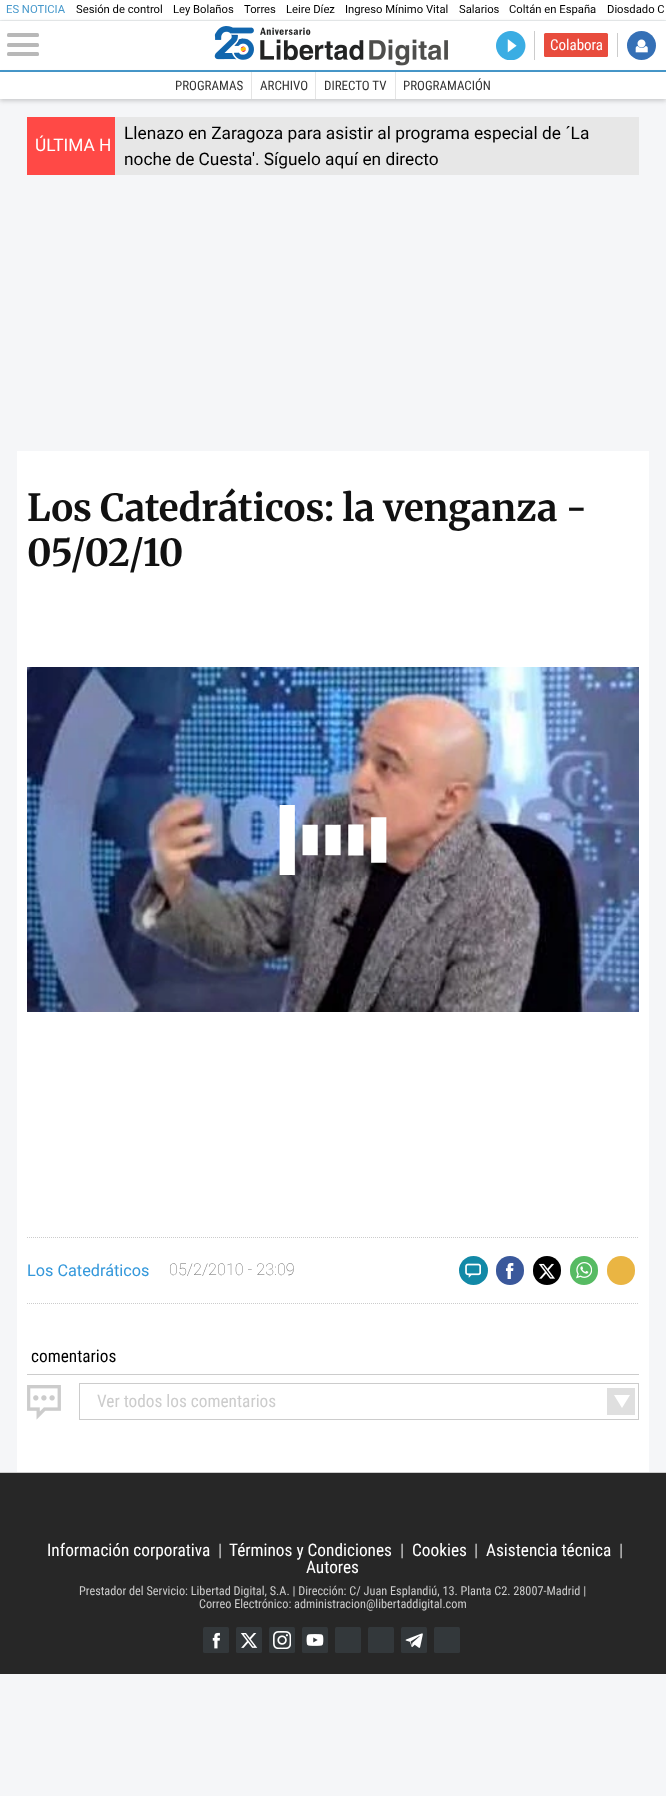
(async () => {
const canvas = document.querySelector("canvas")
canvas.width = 666
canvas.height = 1796
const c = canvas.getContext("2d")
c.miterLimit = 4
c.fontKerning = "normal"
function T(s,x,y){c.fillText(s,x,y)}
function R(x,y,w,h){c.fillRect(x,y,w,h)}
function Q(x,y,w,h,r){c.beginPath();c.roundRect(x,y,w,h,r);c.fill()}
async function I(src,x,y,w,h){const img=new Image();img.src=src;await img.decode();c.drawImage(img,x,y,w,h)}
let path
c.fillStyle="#f5f6f8"
R(0,0,666,1796)
c.fillStyle="#fff"
R(0,0,666,20)
c.fillStyle="#ecf0f1"
R(0,20,666,1)
c.font="11.25px Roboto"
c.fillStyle="#4698cb"
T("ES NOTICIA",6,13)
c.fillStyle="#000"
T("Sesión de control",76,13)
T("Ley Bolaños",173,13)
T("Torres",244,13)
T("Leire Díez",286,13)
T("Ingreso Mínimo Vital",345,13)
T("Salarios",459,13)
T("Coltán en España",509,13)
T("Diosdado C",607,13)
c.fillStyle="#32323270"
c.filter="blur(2px)"
c.beginPath()
c.rect(0,23,666,51)
c.fill()
c.filter="none"
c.fillStyle="#fff"
R(0,21,666,49)
c.fillStyle="#4698cb"
R(0,70,666,2)
c.fillStyle="#b8b8b8"
Q(7,33,32,4,1.5)
Q(7,43,32,4,1.5)
Q(7,52,32,4,1.5)
await I("1.png",214,26,234,40)
c.fillStyle="#ccc"
R(534,31,1,29)
await I("2.png",496,31,30,29)
R(617,33,1,24)
c.fillStyle="#e84c3d"
Q(544,33,64,24,1.5)
c.font="15px Roboto Condensed"
c.fillStyle="#fff"
T("Colabora",550,50)
c.fillStyle="#3570b6"
c.beginPath()
c.arc(641.5,45.5,14.5,0,7)
c.fill()
await I("3.png",635,39,13,14)
c.fillStyle="#32323238"
c.filter="blur(2px)"
c.beginPath()
c.rect(0,74,666,27)
c.fill()
c.filter="none"
c.fillStyle="#fff"
R(0,72,666,27)
c.font="13px Roboto Condensed"
c.fillStyle="#333"
T("PROGRAMAS",175,90)
c.fillStyle="#e5e5e5"
R(251,72,1,27)
c.fillStyle="#333"
T("ARCHIVO",260,90)
c.fillStyle="#e5e5e5"
R(315,72,1,27)
c.fillStyle="#333"
T("DIRECTO TV",324,90)
c.fillStyle="#e5e5e5"
R(395,72,1,27)
c.fillStyle="#333"
T("PROGRAMACIÓN",403,90)
c.fillStyle="#ff4946"
R(27,117,88,58)
c.font="17.3px Roboto"
c.fillStyle="#fff"
T("ÚLTIMA H",35,151)
c.fillStyle="#e7e7e7"
R(115,117,524,58)
c.fillStyle="#000"
T("Llenazo en Zaragoza para asistir al programa especial de ´La",124,139)
T("noche de Cuesta'. Síguelo aquí en directo",124,165)
c.fillStyle="#fff"
R(17,451,632,1021)
c.font="bold 37.3px Merriweather"
c.fillStyle="#111"
T("Los Catedráticos: la venganza -",27,521)
T("05/02/10",27,566)
await I("4.png",27,667,612,345)
await I("5.png",279,805,108,70)
path = new Path2D("M27 1237.5h612")
c.strokeStyle="#ccc"
c.setLineDash([1,1])
c.stroke(path)
path = new Path2D("M27 1303.5h612")
c.stroke(path)
c.font="16.25px Roboto"
c.fillStyle="#3498db"
T("Los Catedráticos",27,1276)
c.font="100 16.25px Roboto"
c.fillStyle="#666"
T("05/2/2010 - 23:09",169,1275)
c.fillStyle="#1289a7"
c.beginPath()
c.arc(473.5,1270.5,14.5,0,7)
c.fill()
await I("6.png",465,1263,16,15)
c.fillStyle="#3a589b"
Q(496,1256,28,29,14)
await I("7.png",505,1263,9,16)
c.fillStyle="#000"
Q(533,1256,28,29,14)
await I("8.png",538,1263,17,16)
c.fillStyle="#57bb63"
Q(570,1256,28,29,14)
await I("9.png",576,1262,16,17)
c.fillStyle="#eab543"
Q(607,1256,28,29,14)
c.fillStyle="#ccc"
R(27,1374,612,1)
c.font="17.3px Roboto Condensed"
c.fillStyle="#000"
T("comentarios",31,1362)
await I("10.png",27,1385,34,35)
c.setLineDash([])
c.strokeRect(79.5,1383.5,559,36)
c.fillStyle="#ccc"
T("Ver todos los comentarios",97,1407)
c.fillStyle="#dfdfdf"
R(607,1388,28,27)
c.fillStyle="#fff"
path = new Path2D("M614 1395h16l-8 13z")
c.fill(path)
c.fillStyle="#272727"
R(0,1473,666,201)
c.fillStyle="#ccc"
R(0,1472,666,1)
c.fillStyle="#fff"
T("Información corporativa",47,1556)
c.fillStyle="#ccc"
T("|",218,1556)
c.fillStyle="#fff"
T("Términos y Condiciones",229,1556)
c.fillStyle="#ccc"
T("|",400,1556)
c.fillStyle="#fff"
T("Cookies",412,1556)
c.fillStyle="#ccc"
T("|",474,1556)
c.fillStyle="#fff"
T("Asistencia técnica",486,1556)
c.fillStyle="#ccc"
T("|",619,1556)
c.fillStyle="#fff"
T("Autores",306,1573)
c.font="12.25px Roboto Condensed"
c.fillStyle="#ccc"
T("Prestador del Servicio: Libertad Digital, S.A. | Dirección: C/ Juan Esplandiú, 13. Planta C2. 28007-Madrid |",79,1595)
T("Correo Electrónico: administracion@libertaddigital.com",199,1608)
c.fillStyle="#33383b"
Q(203,1627,26,26,1.5)
await I("11.png",212,1632,8,17)
Q(236,1627,26,26,1.5)
await I("12.png",240,1633,18,15)
Q(269,1627,26,26,1.5)
await I("13.png",273,1631,18,18)
Q(302,1627,26,26,1.5)
await I("14.png",306,1634,18,12)
Q(335,1627,26,26,1.5)
Q(368,1627,26,26,1.5)
Q(401,1627,26,26,1.5)
await I("15.png",405,1633,18,15)
Q(434,1627,26,26,1.5)
})()
